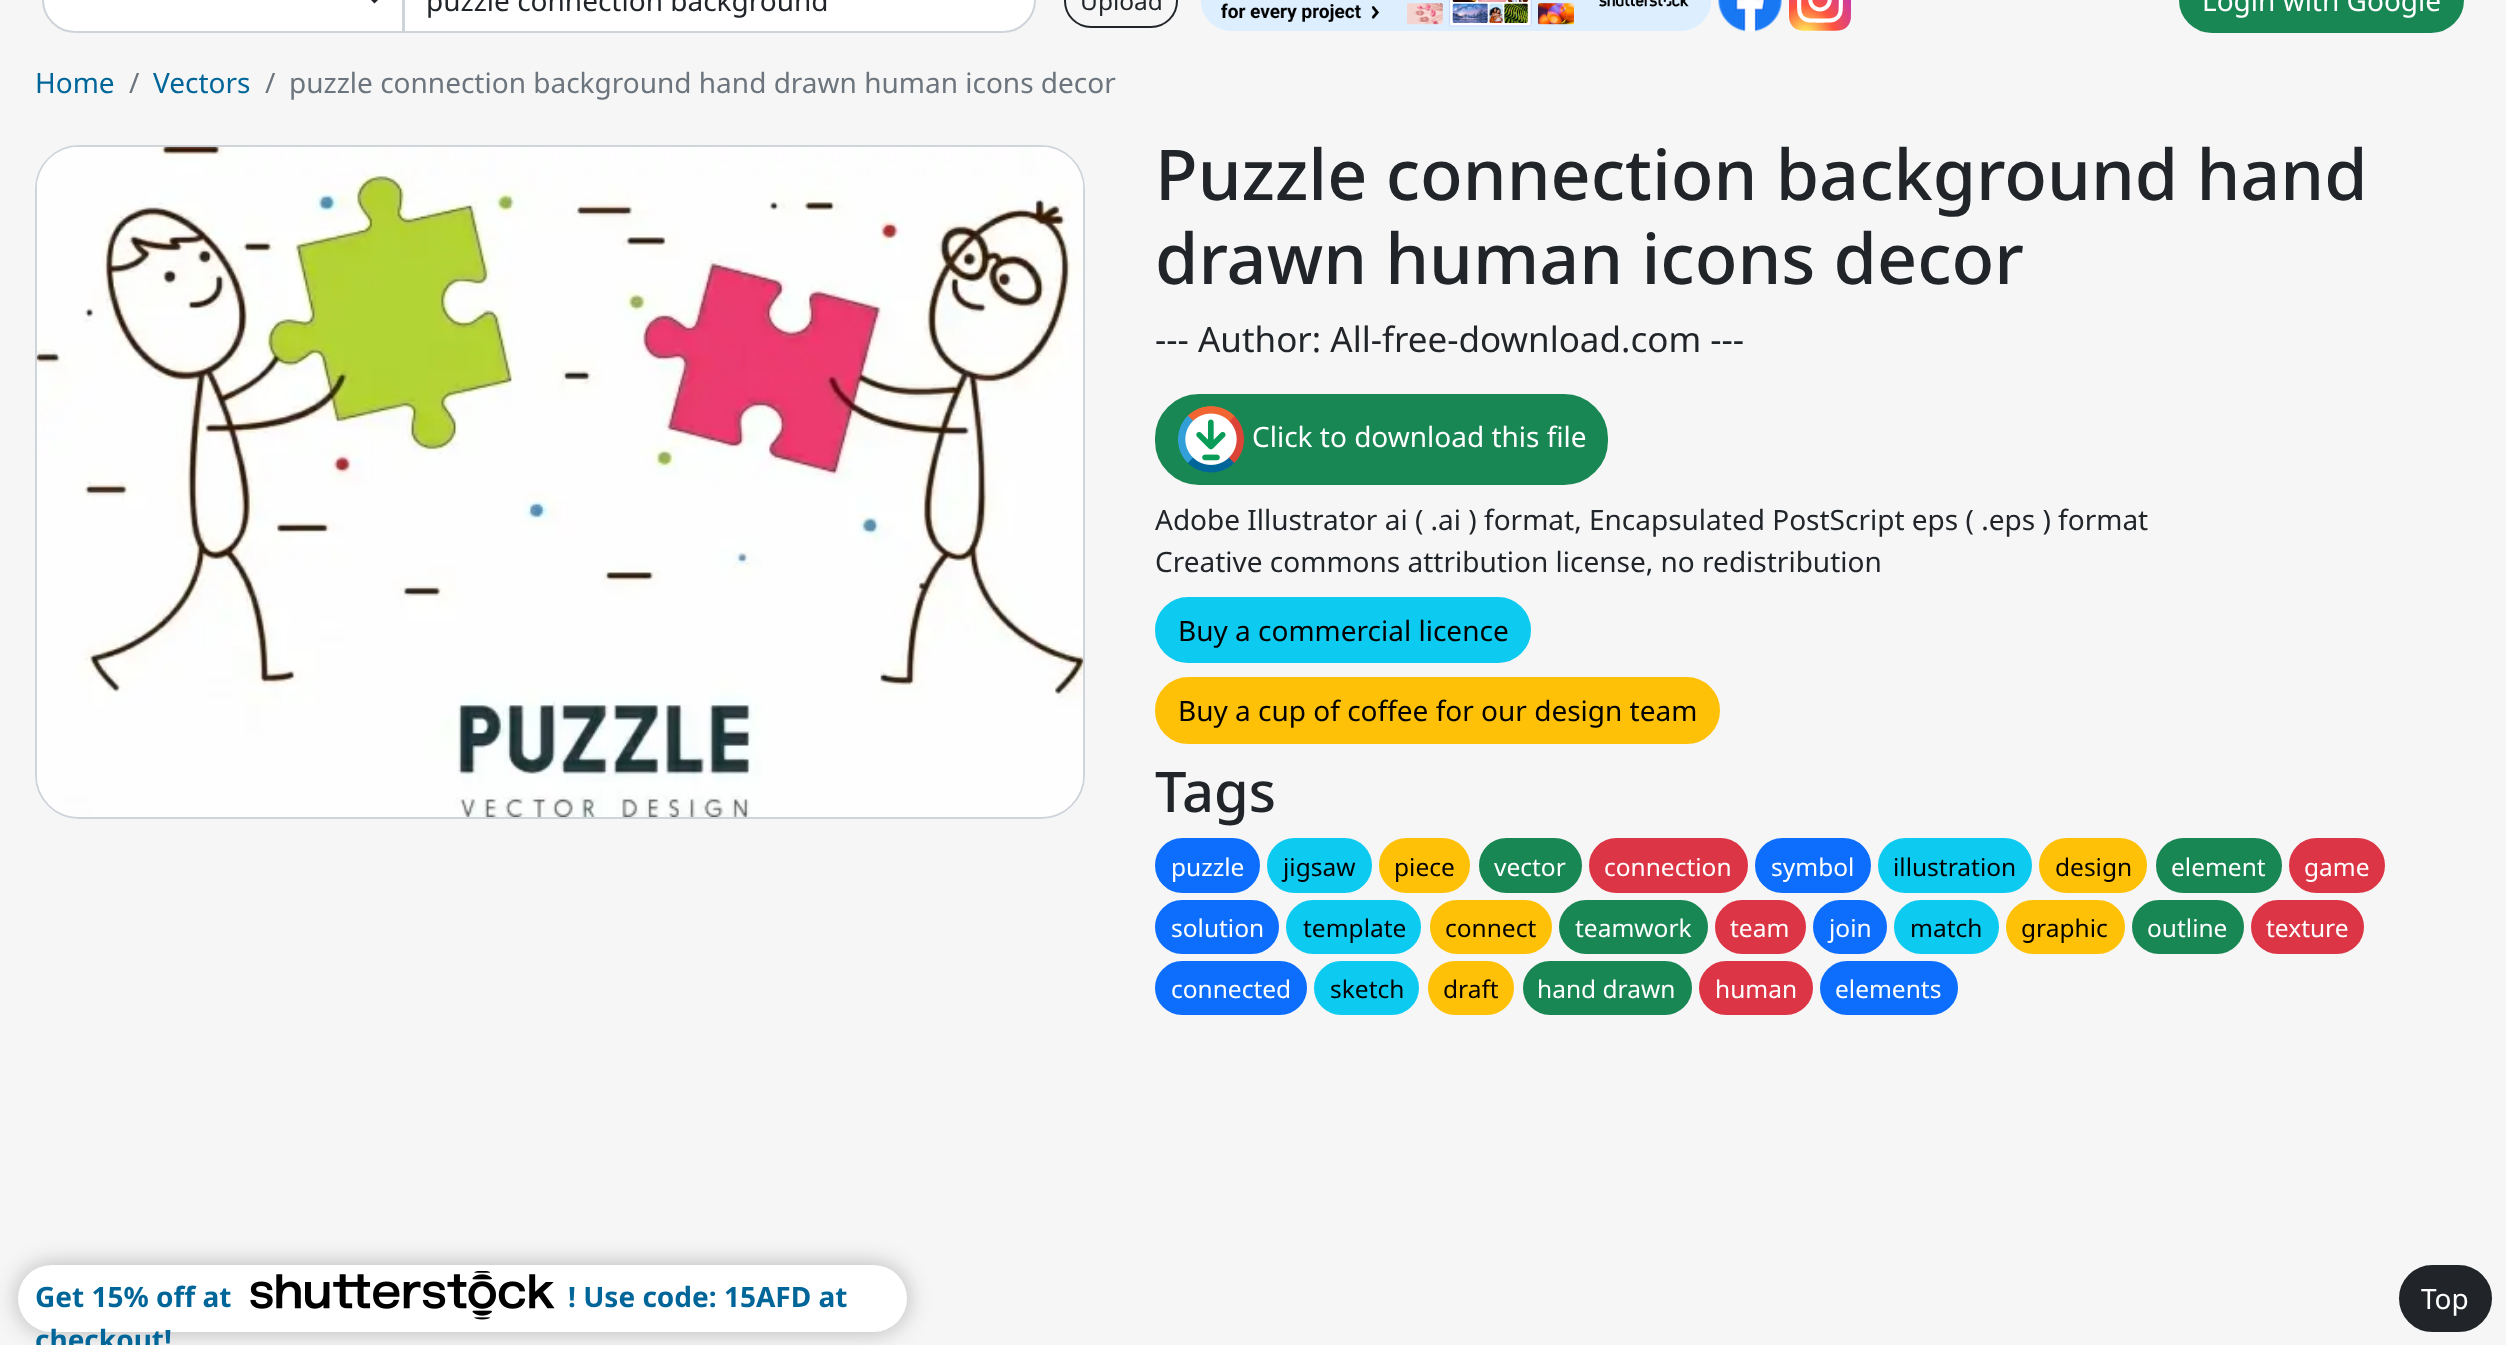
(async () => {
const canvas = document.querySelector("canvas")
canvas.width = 2506
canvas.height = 1345
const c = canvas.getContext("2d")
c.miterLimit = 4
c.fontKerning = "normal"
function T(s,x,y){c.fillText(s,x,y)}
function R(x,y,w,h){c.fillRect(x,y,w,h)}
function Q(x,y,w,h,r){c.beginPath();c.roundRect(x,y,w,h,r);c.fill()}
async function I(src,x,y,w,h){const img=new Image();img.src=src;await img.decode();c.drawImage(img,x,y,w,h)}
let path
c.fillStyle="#f6f6f6"
R(0,0,2506,1345)
c.fillStyle="#fff"
path = new Path2D("M75-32h328v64h-328c-17.5 0-32-14.5-32-32c0-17.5 14.5-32 32-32z")
c.fill(path)
c.strokeStyle="#ced4da"
c.lineWidth=2
c.stroke(path)
c.fillStyle="#212529"
path = new Path2D("M367.5-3.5h14l-7 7z")
c.fill(path)
c.fillStyle="#fff"
path = new Path2D("M404-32h599c17.5 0 32 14.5 32 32c0 17.5-14.5 32-32 32h-599z")
c.fill(path)
c.stroke(path)
c.font="28px Noto Sans"
c.fillStyle="#212529"
T("puzzle connection background",426,11)
c.beginPath()
c.roundRect(1065,-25,112,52,26)
c.strokeStyle="#212529"
c.stroke()
c.font="24.5px Noto Sans"
T("Upload",1080,10)
await I("1.png",1200,0,512,31)
await I("2.png",1718,0,64,32)
await I("3.png",1789,0,62,31)
c.fillStyle="#198754"
c.beginPath()
c.roundRect(2180,-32,283,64,32)
c.fill()
c.strokeStyle="#198754"
c.stroke()
c.font="28px Noto Sans"
c.fillStyle="#fff"
T("Login with Google",2202,11)
c.fillStyle="#069"
T("Home",35,93)
c.fillStyle="#6c757d"
T("/",129,93)
c.fillStyle="#069"
T("Vectors",153,93)
c.fillStyle="#6c757d"
T("/",265,93)
T("puzzle connection background hand drawn human icons decor",289,93)
c.beginPath()
c.roundRect(36,146,1048,672,43)
c.strokeStyle="#ced4da"
c.stroke()
await I("4.png",36,146,1048,671)
c.font="500 70px Noto Sans"
c.fillStyle="#212529"
T("Puzzle connection background hand",1155,200)
T("drawn human icons decor",1155,284)
c.font="35px Noto Sans"
T("--- Author: All-free-download.com ---",1155,352)
c.fillStyle="#198754"
c.beginPath()
c.roundRect(1156,395,451,89,43)
c.fill()
c.strokeStyle="#198754"
c.stroke()
await I("5.png",1178,406,66,67)
c.font="28px Noto Sans"
c.fillStyle="#fff"
T("Click to download this file",1252,447)
c.fillStyle="#212529"
T("Adobe Illustrator ai ( .ai ) format, Encapsulated PostScript eps ( .eps ) format",1155,530)
T("Creative commons attribution license, no redistribution",1155,572)
c.fillStyle="#0dcaf0"
c.beginPath()
c.roundRect(1156,598,374,64,32)
c.fill()
c.strokeStyle="#0dcaf0"
c.stroke()
c.fillStyle="#000"
T("Buy a commercial licence",1178,641)
c.fillStyle="#ffc107"
c.beginPath()
c.roundRect(1156,678,563,65,32.5)
c.fill()
c.strokeStyle="#ffc107"
c.stroke()
c.fillStyle="#000"
T("Buy a cup of coffee for our design team",1178,721)
c.font="500 56px Noto Sans"
c.fillStyle="#212529"
T("Tags",1155,812)
c.fillStyle="#0d6efd"
c.beginPath()
c.roundRect(1156,839,103,53,26.5)
c.fill()
c.strokeStyle="#0d6efd"
c.stroke()
c.font="24.5px Noto Sans"
c.fillStyle="#fff"
T("puzzle",1171,876)
c.fillStyle="#0dcaf0"
c.beginPath()
c.roundRect(1268,839,103,53,26.5)
c.fill()
c.strokeStyle="#0dcaf0"
c.stroke()
c.fillStyle="#000"
T("jigsaw",1283,876)
c.fillStyle="#ffc107"
c.beginPath()
c.roundRect(1380,839,89,53,26.5)
c.fill()
c.strokeStyle="#ffc107"
c.stroke()
c.fillStyle="#000"
T("piece",1394,876)
c.fillStyle="#198754"
c.beginPath()
c.roundRect(1480,839,101,53,26.5)
c.fill()
c.strokeStyle="#198754"
c.stroke()
c.fillStyle="#fff"
T("vector",1494,876)
c.fillStyle="#dc3545"
c.beginPath()
c.roundRect(1590,839,157,53,26.5)
c.fill()
c.strokeStyle="#dc3545"
c.stroke()
c.fillStyle="#fff"
T("connection",1604,876)
c.fillStyle="#0d6efd"
c.beginPath()
c.roundRect(1756,839,114,53,26.5)
c.fill()
c.strokeStyle="#0d6efd"
c.stroke()
c.fillStyle="#fff"
T("symbol",1771,876)
c.fillStyle="#0dcaf0"
c.beginPath()
c.roundRect(1879,839,152,53,26.5)
c.fill()
c.strokeStyle="#0dcaf0"
c.stroke()
c.fillStyle="#000"
T("illustration",1893,876)
c.fillStyle="#ffc107"
c.beginPath()
c.roundRect(2040,839,106,53,26.5)
c.fill()
c.strokeStyle="#ffc107"
c.stroke()
c.fillStyle="#000"
T("design",2055,876)
c.fillStyle="#198754"
c.beginPath()
c.roundRect(2157,839,124,53,26.5)
c.fill()
c.strokeStyle="#198754"
c.stroke()
c.fillStyle="#fff"
T("element",2171,876)
c.fillStyle="#dc3545"
c.beginPath()
c.roundRect(2290,839,94,53,26.5)
c.fill()
c.strokeStyle="#dc3545"
c.stroke()
c.fillStyle="#fff"
T("game",2304,876)
c.fillStyle="#0d6efd"
c.beginPath()
c.roundRect(1156,901,122,52,26)
c.fill()
c.strokeStyle="#0d6efd"
c.stroke()
c.fillStyle="#fff"
T("solution",1171,937)
c.fillStyle="#0dcaf0"
c.beginPath()
c.roundRect(1287,901,133,52,26)
c.fill()
c.strokeStyle="#0dcaf0"
c.stroke()
c.fillStyle="#000"
T("template",1303,937)
c.fillStyle="#ffc107"
c.beginPath()
c.roundRect(1431,901,120,52,26)
c.fill()
c.strokeStyle="#ffc107"
c.stroke()
c.fillStyle="#000"
T("connect",1445,937)
c.fillStyle="#198754"
c.beginPath()
c.roundRect(1560,901,147,52,26)
c.fill()
c.strokeStyle="#198754"
c.stroke()
c.fillStyle="#fff"
T("teamwork",1575,937)
c.fillStyle="#dc3545"
c.beginPath()
c.roundRect(1716,901,89,52,26)
c.fill()
c.strokeStyle="#dc3545"
c.stroke()
c.fillStyle="#fff"
T("team",1730,937)
c.fillStyle="#0d6efd"
c.beginPath()
c.roundRect(1814,901,72,52,26)
c.fill()
c.strokeStyle="#0d6efd"
c.stroke()
c.fillStyle="#fff"
T("join",1829,937)
c.fillStyle="#0dcaf0"
c.beginPath()
c.roundRect(1895,901,103,52,26)
c.fill()
c.strokeStyle="#0dcaf0"
c.stroke()
c.fillStyle="#000"
T("match",1910,937)
c.fillStyle="#ffc107"
c.beginPath()
c.roundRect(2007,901,117,52,26)
c.fill()
c.strokeStyle="#ffc107"
c.stroke()
c.fillStyle="#000"
T("graphic",2021,937)
c.fillStyle="#198754"
c.beginPath()
c.roundRect(2133,901,110,52,26)
c.fill()
c.strokeStyle="#198754"
c.stroke()
c.fillStyle="#fff"
T("outline",2147,937)
c.fillStyle="#dc3545"
c.beginPath()
c.roundRect(2252,901,111,52,26)
c.fill()
c.strokeStyle="#dc3545"
c.stroke()
c.fillStyle="#fff"
T("texture",2266,937)
c.fillStyle="#0d6efd"
c.beginPath()
c.roundRect(1156,962,150,52,26)
c.fill()
c.strokeStyle="#0d6efd"
c.stroke()
c.fillStyle="#fff"
T("connected",1171,998)
c.fillStyle="#0dcaf0"
c.beginPath()
c.roundRect(1315,962,103,52,26)
c.fill()
c.strokeStyle="#0dcaf0"
c.stroke()
c.fillStyle="#000"
T("sketch",1330,998)
c.fillStyle="#ffc107"
c.beginPath()
c.roundRect(1429,962,84,52,26)
c.fill()
c.strokeStyle="#ffc107"
c.stroke()
c.fillStyle="#000"
T("draft",1443,998)
c.fillStyle="#198754"
c.beginPath()
c.roundRect(1524,962,167,52,26)
c.fill()
c.strokeStyle="#198754"
c.stroke()
c.fillStyle="#fff"
T("hand drawn",1537,998)
c.fillStyle="#dc3545"
c.beginPath()
c.roundRect(1700,962,112,52,26)
c.fill()
c.strokeStyle="#dc3545"
c.stroke()
c.fillStyle="#fff"
T("human",1715,998)
c.fillStyle="#0d6efd"
c.beginPath()
c.roundRect(1821,962,136,52,26)
c.fill()
c.strokeStyle="#0d6efd"
c.stroke()
c.fillStyle="#fff"
T("elements",1835,998)
c.fillStyle="#231f204d"
c.filter="blur(11.5px)"
c.beginPath()
c.roundRect(18,1265,889,67,33.5)
c.fill()
c.filter="none"
c.fillStyle="#fff"
Q(18,1265,889,67,33.5)
c.font="bold 28px Noto Sans"
c.fillStyle="#069"
T("Get 15% off at",35,1307)
await I("6.png",250,1271,305,49)
T("! Use code: 15AFD at",568,1307)
T("checkout!",35,1350)
c.fillStyle="#212529"
c.beginPath()
c.roundRect(2400,1266,91,65,32.5)
c.fill()
c.strokeStyle="#212529"
c.stroke()
c.font="28px Noto Sans"
c.fillStyle="#fff"
T("Top",2421,1309)
})()
